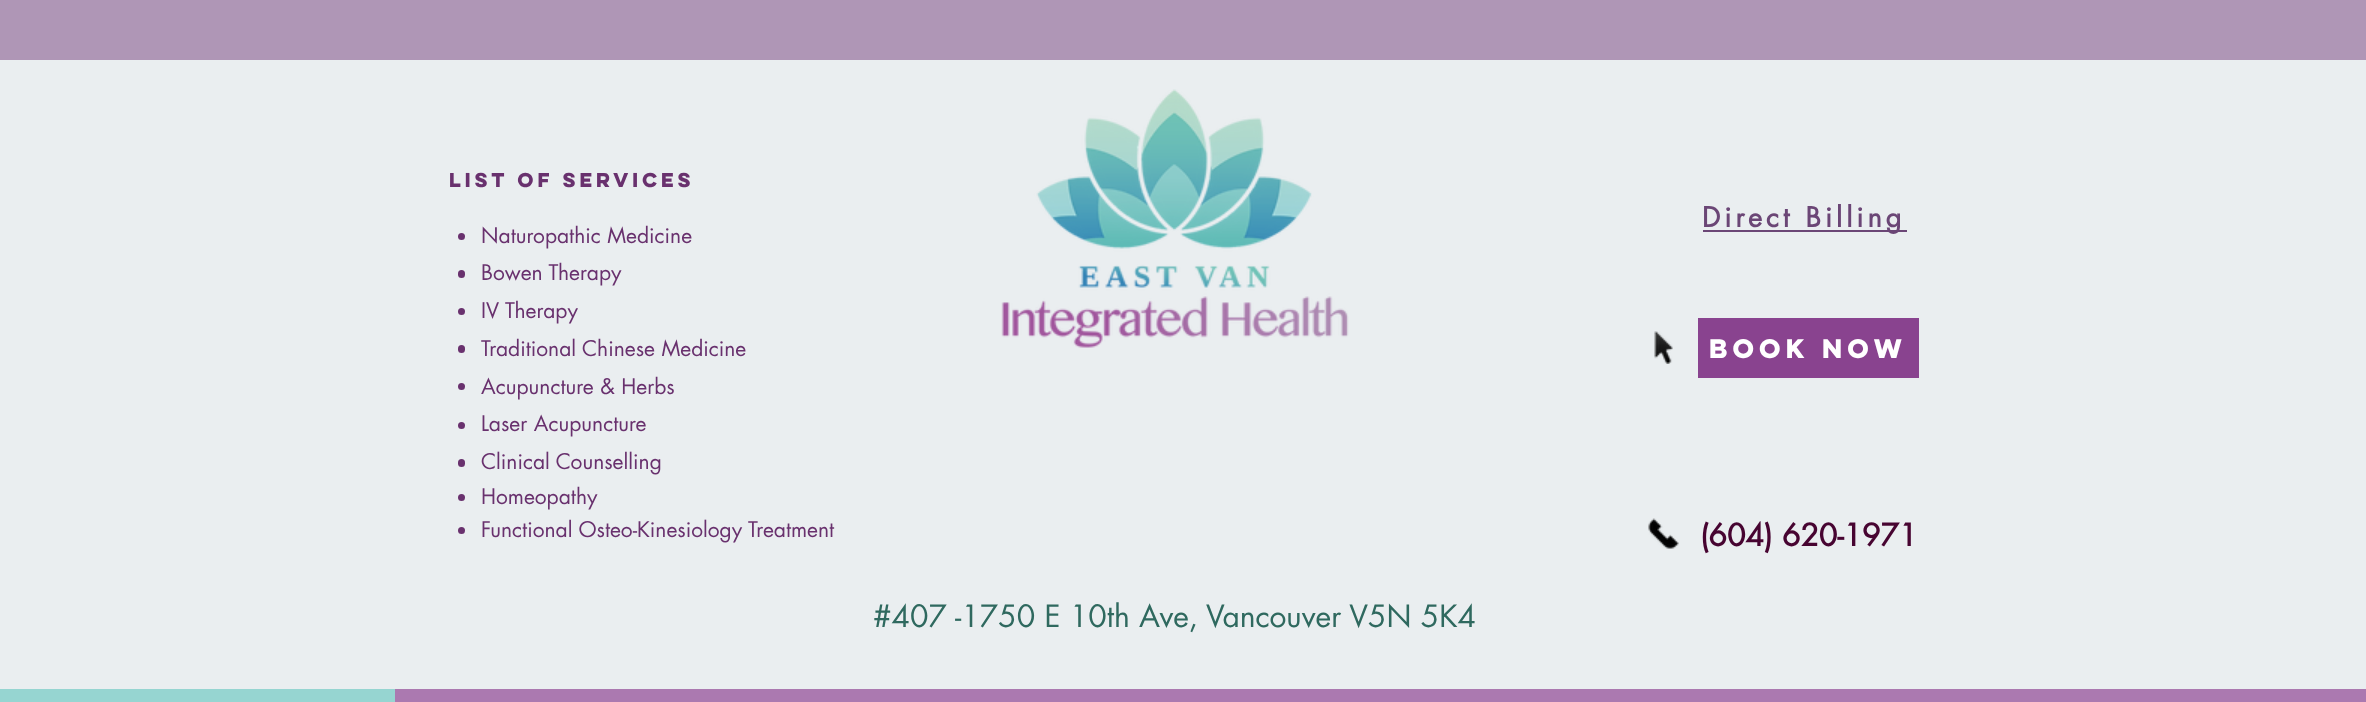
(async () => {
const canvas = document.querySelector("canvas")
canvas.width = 2366
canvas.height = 702
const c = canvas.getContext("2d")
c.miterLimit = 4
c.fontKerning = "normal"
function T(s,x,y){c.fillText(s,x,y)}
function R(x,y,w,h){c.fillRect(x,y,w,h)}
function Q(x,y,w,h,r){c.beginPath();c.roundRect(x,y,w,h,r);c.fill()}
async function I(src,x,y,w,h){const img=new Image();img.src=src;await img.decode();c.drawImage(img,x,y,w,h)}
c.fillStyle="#eaeef0"
R(0,0,2366,702)
c.fillStyle="#af96b6"
R(0,0,2366,60)
c.font="bold 18px 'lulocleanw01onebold'"
c.fillStyle="#69316e"
T("List of services",449,187)
c.beginPath()
c.arc(461.5,236.5,3.5,0,7)
c.fill()
c.font="21px futura"
T("Naturopathic Medicine",481,243)
Q(458,270,7,8,3.5)
T("Bowen Therapy",481,280)
c.beginPath()
c.arc(461.5,311.5,3.5,0,7)
c.fill()
T("IV Therapy",481,318)
Q(458,345,7,8,3.5)
T("Traditional Chinese Medicine",481,356)
c.beginPath()
c.arc(461.5,386.5,3.5,0,7)
c.fill()
T("Acupuncture & Herbs",481,394)
c.beginPath()
c.arc(461.5,425.5,3.5,0,7)
c.fill()
T("Laser Acupuncture",481,431)
Q(458,459,7,8,3.5)
T("Clinical Counselling",481,469)
c.beginPath()
c.arc(461.5,497.5,3.5,0,7)
c.fill()
T("Homeopathy",481,504)
c.beginPath()
c.arc(461.5,530.5,3.5,0,7)
c.fill()
T("Functional Osteo-Kinesiology Treatment",481,537)
await I("1.png",1001,89,348,259)
c.fillStyle="#6b4676"
R(1703,230,204,2)
c.letterSpacing="4px"
c.font="bold 27px futura"
T("Direct Billing",1702,227)
await I("2.png",1654,331,19,33)
c.fillStyle="#89438f"
R(1698,318,221,60)
c.letterSpacing="0px"
c.font="bold 24px 'lulocleanw01onebold'"
c.fillStyle="#fff"
T("Book Now",1709,358)
await I("3.png",1648,518,31,31)
c.font="bold 30px futura"
c.fillStyle="#470431"
T("(604) 620-1971",1700,546)
c.font="30px futura"
c.fillStyle="#2f695f"
T("#407 -1750 E 10th Ave, Vancouver V5N 5K4",873,627)
c.fillStyle="#96d5d1"
R(0,689,395,13)
c.fillStyle="#ab79b0"
R(395,689,1971,13)
})()
